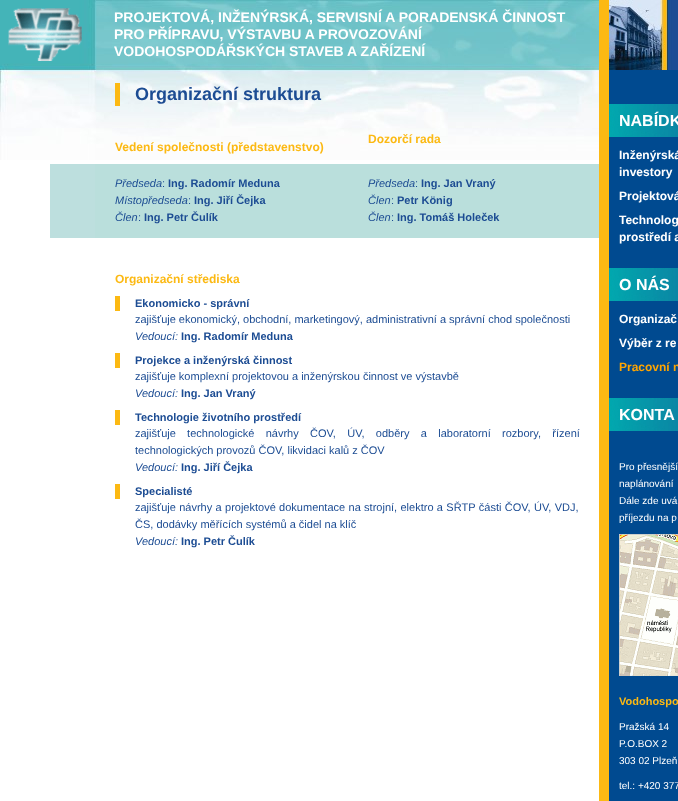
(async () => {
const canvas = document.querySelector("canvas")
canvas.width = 678
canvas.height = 801
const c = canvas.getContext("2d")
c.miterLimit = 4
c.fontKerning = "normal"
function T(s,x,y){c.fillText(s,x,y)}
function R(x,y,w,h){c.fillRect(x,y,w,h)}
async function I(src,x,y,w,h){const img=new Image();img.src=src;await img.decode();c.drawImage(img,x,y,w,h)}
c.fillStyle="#fff"
R(0,0,678,801)
await I("1.png",0,0,599,160)
await I("2.png",8,8,74,53)
c.font="bold 14px Liberation Sans"
T("PROJEKTOVÁ, INŽENÝRSKÁ, SERVISNÍ A PORADENSKÁ ČINNOST",114,22)
T("PRO PŘÍPRAVU, VÝSTAVBU A PROVOZOVÁNÍ",114,39)
T("VODOHOSPODÁŘSKÝCH STAVEB A ZAŘÍZENÍ",114,56)
c.fillStyle="#fcb913"
R(115,83,5,23)
c.font="bold 18px Liberation Sans"
c.fillStyle="#1c4c93"
T("Organizační struktura",135,100)
c.font="bold 12px Liberation Sans"
c.fillStyle="#fcb913"
T("Vedení společnosti (představenstvo)",115,151)
T("Dozorčí rada",368,143)
c.fillStyle="#bddfde"
R(50,164,45,74)
c.fillStyle="#badfdc"
R(95,164,504,74)
c.font="italic 11px Liberation Sans"
c.fillStyle="#1c4c93"
T("Předseda",115,187)
c.font="11px Liberation Sans"
T(":",162,187)
c.font="bold 11px Liberation Sans"
T("Ing. Radomír Meduna",168,187)
c.font="italic 11px Liberation Sans"
T("Místopředseda",115,204)
c.font="11px Liberation Sans"
T(":",188,204)
c.font="bold 11px Liberation Sans"
T("Ing. Jiří Čejka",194,204)
c.font="italic 11px Liberation Sans"
T("Člen",115,221)
c.font="11px Liberation Sans"
T(":",138,221)
c.font="bold 11px Liberation Sans"
T("Ing. Petr Čulík",144,221)
c.font="italic 11px Liberation Sans"
T("Předseda",368,187)
c.font="11px Liberation Sans"
T(":",415,187)
c.font="bold 11px Liberation Sans"
T("Ing. Jan Vraný",421,187)
c.font="italic 11px Liberation Sans"
T("Člen",368,204)
c.font="11px Liberation Sans"
T(":",391,204)
c.font="bold 11px Liberation Sans"
T("Petr König",397,204)
c.font="italic 11px Liberation Sans"
T("Člen",368,221)
c.font="11px Liberation Sans"
T(":",391,221)
c.font="bold 11px Liberation Sans"
T("Ing. Tomáš Holeček",397,221)
c.font="bold 12px Liberation Sans"
c.fillStyle="#fcb913"
T("Organizační střediska",115,283)
R(115,296,5,15)
c.font="bold 11px Liberation Sans"
c.fillStyle="#1c4c93"
T("Ekonomicko - správní",135,307)
c.font="11px Liberation Sans"
T("zajišťuje ekonomický, obchodní, marketingový, administrativní a správní chod společnosti",135,323)
c.font="italic 11px Liberation Sans"
T("Vedoucí:",135,340)
c.font="bold 11px Liberation Sans"
T("Ing. Radomír Meduna",181,340)
c.fillStyle="#fcb913"
R(115,353,5,15)
c.fillStyle="#1c4c93"
T("Projekce a inženýrská činnost",135,364)
c.font="11px Liberation Sans"
T("zajišťuje komplexní projektovou a inženýrskou činnost ve výstavbě",135,380)
c.font="italic 11px Liberation Sans"
T("Vedoucí:",135,397)
c.font="bold 11px Liberation Sans"
T("Ing. Jan Vraný",181,397)
c.fillStyle="#fcb913"
R(115,410,5,15)
c.fillStyle="#1c4c93"
T("Technologie životního prostředí",135,421)
c.wordSpacing="8.25px"
c.font="11px Liberation Sans"
T("zajišťuje technologické návrhy ČOV, ÚV, odběry a laboratorní rozbory, řízení",135,437)
c.wordSpacing="0px"
T("technologických provozů ČOV, likvidaci kalů z ČOV",135,454)
c.font="italic 11px Liberation Sans"
T("Vedoucí:",135,471)
c.font="bold 11px Liberation Sans"
T("Ing. Jiří Čejka",181,471)
c.fillStyle="#fcb913"
R(115,484,5,15)
c.fillStyle="#1c4c93"
T("Specialisté",135,495)
c.wordSpacing="0.3px"
c.font="11px Liberation Sans"
T("zajišťuje návrhy a projektové dokumentace na strojní, elektro a SŘTP části ČOV, ÚV, VDJ,",135,511)
c.wordSpacing="0px"
T("ČS, dodávky měřících systémů a čidel na klíč",135,528)
c.font="italic 11px Liberation Sans"
T("Vedoucí:",135,545)
c.font="bold 11px Liberation Sans"
T("Ing. Petr Čulík",181,545)
c.fillStyle="#fcb913"
R(599,0,10,801)
c.fillStyle="#004a90"
R(609,70,69,731)
await I("3.png",609,0,69,70)
await I("4.png",609,104,69,33)
c.font="bold 16px Liberation Sans"
c.fillStyle="#fff"
T("NABÍDK",619,126)
c.font="bold 12px Liberation Sans"
T("Inženýrská",619,159)
T("investory",619,176)
T("Projektová",619,200)
T("Technolog",619,224)
T("prostředí a",619,241)
await I("4.png",609,268,69,33)
c.font="bold 16px Liberation Sans"
T("O NÁS",619,290)
c.font="bold 12px Liberation Sans"
T("Organizač",619,323)
T("Výběr z re",619,347)
c.fillStyle="#ffa500"
T("Pracovní n",619,371)
await I("4.png",609,398,69,33)
c.font="bold 16px Liberation Sans"
c.fillStyle="#fff"
T("KONTA",619,420)
c.font="10px Liberation Sans"
T("Pro přesnější",619,470)
T("naplánování",619,487)
T("Dále zde uvá",619,504)
T("příjezdu na p",619,521)
await I("5.png",619,534,59,142)
c.font="bold 11px Liberation Sans"
c.fillStyle="#fcb913"
T("Vodohospo",619,705)
c.font="10px Liberation Sans"
c.fillStyle="#fff"
T("Pražská 14",619,730)
T("P.O.BOX 2",619,747)
T("303 02 Plzeň",619,764)
T("tel.: +420 377",619,789)
})()
